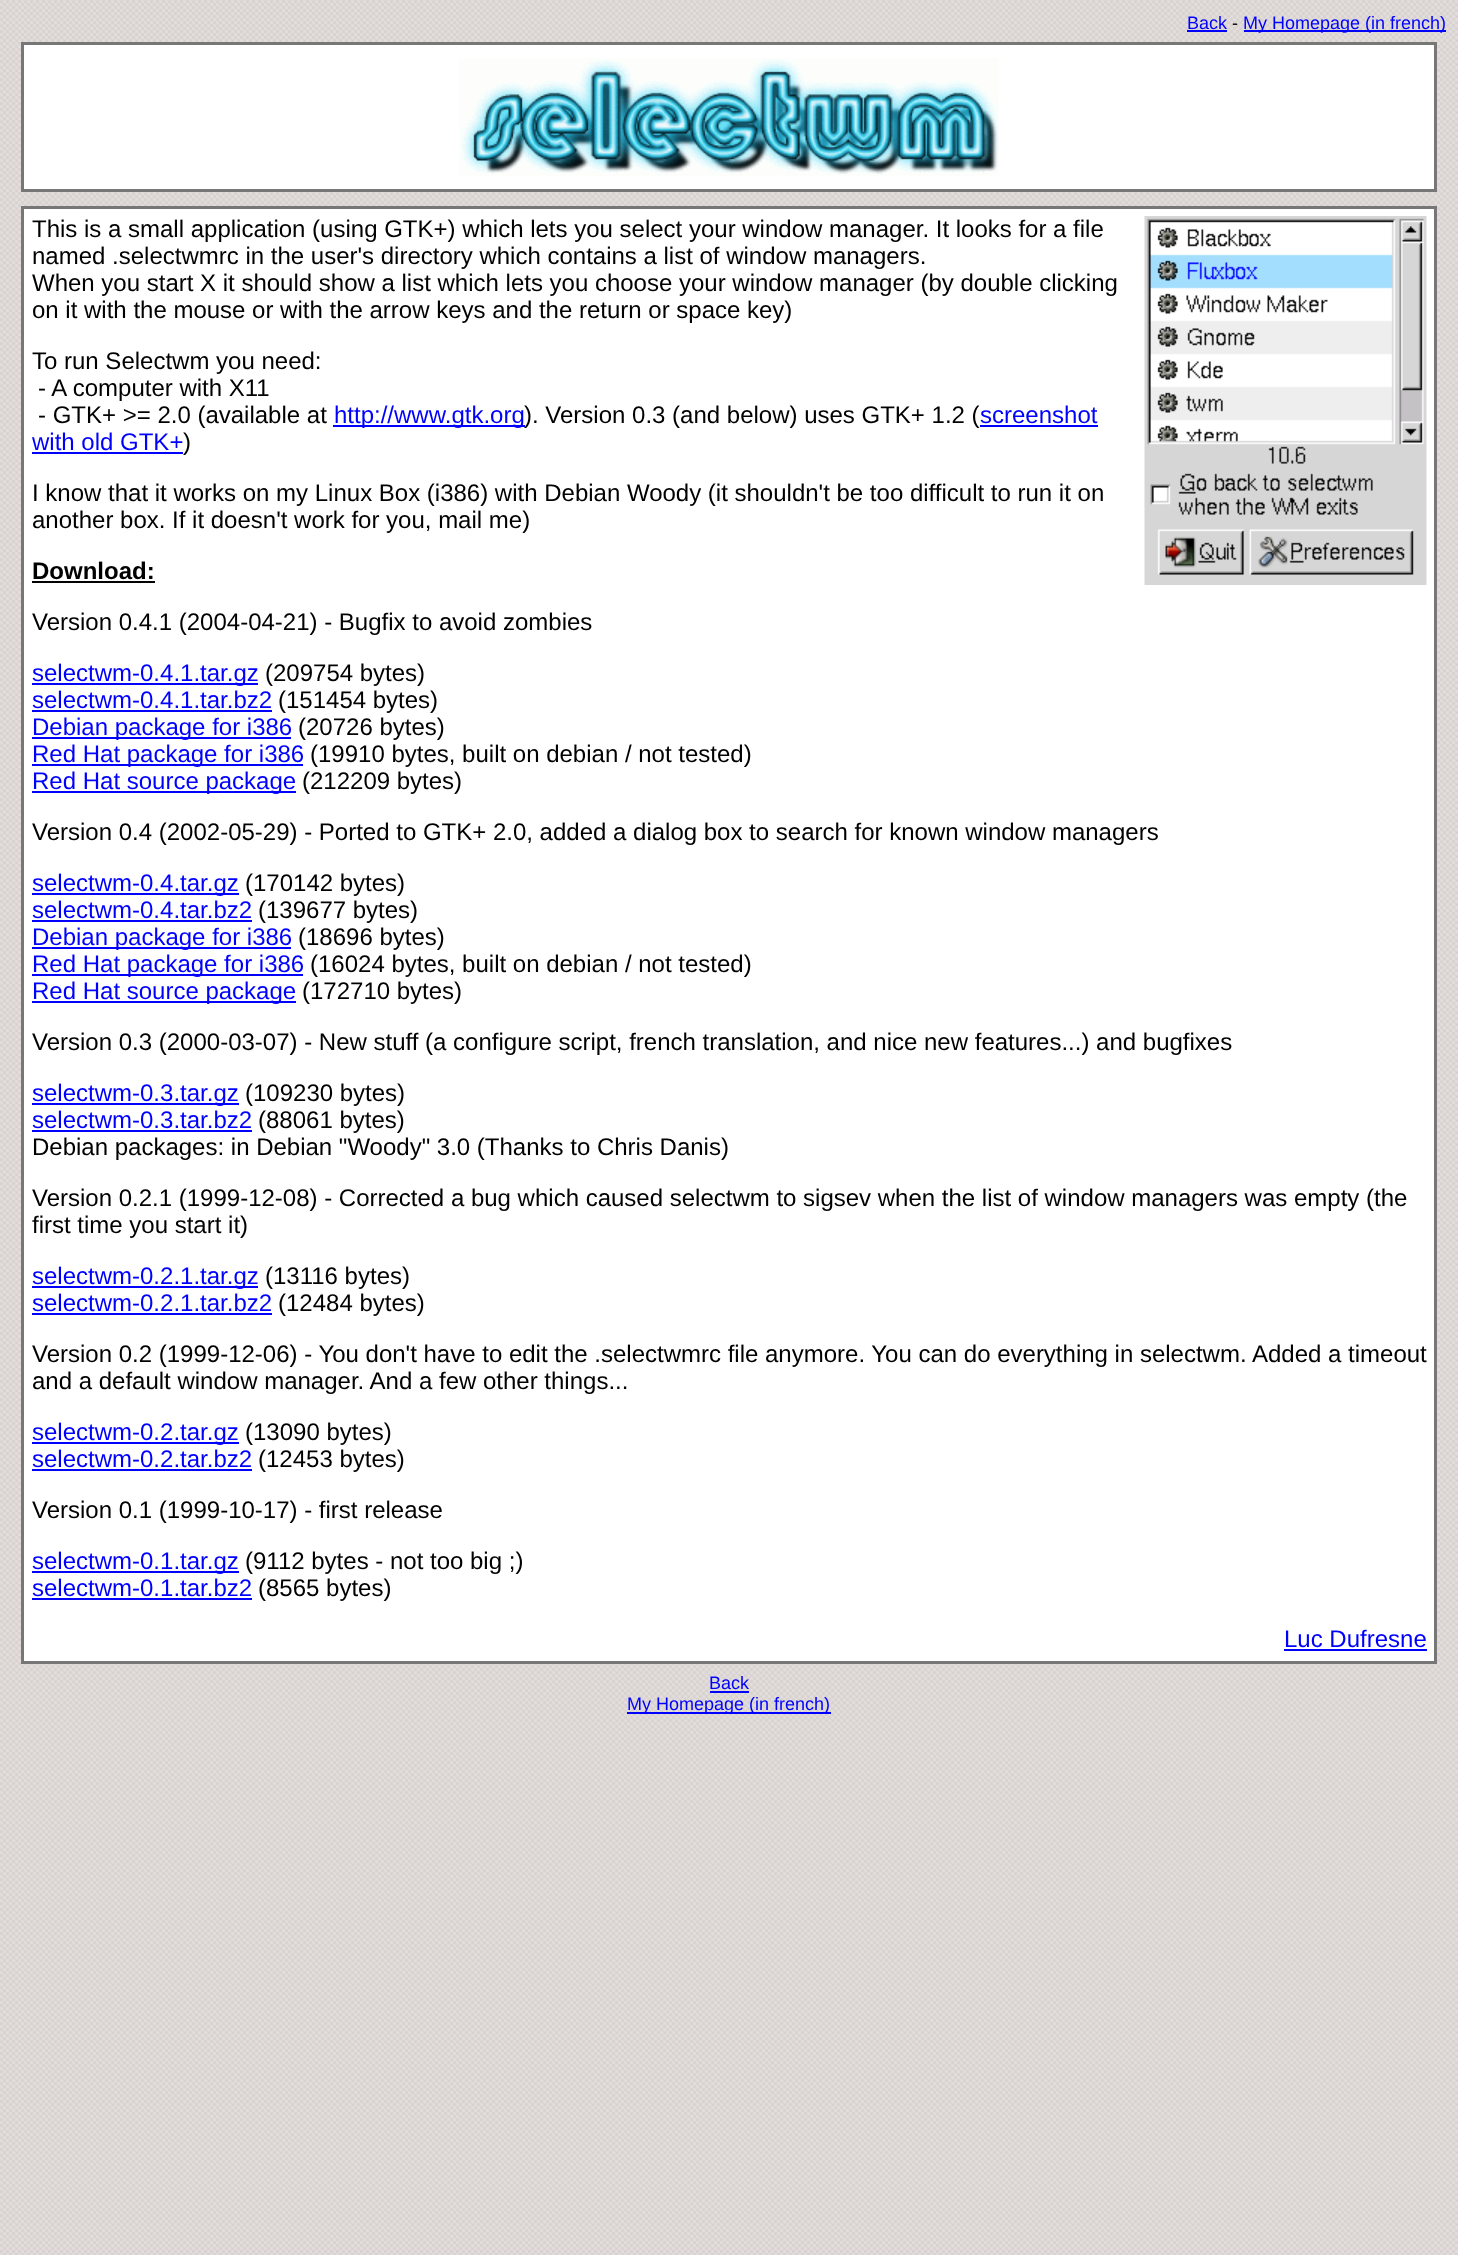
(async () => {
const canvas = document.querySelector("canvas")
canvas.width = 1458
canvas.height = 2255
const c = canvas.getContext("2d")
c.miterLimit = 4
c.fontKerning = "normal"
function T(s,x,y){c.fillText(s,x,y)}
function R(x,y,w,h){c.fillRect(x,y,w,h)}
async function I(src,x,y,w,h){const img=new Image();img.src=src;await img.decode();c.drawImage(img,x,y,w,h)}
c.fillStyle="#fff"
R(0,0,1458,2255)
await I("1.png",0,0,1458,2255)
c.font="18px Liberation Sans"
c.fillStyle="#00f"
T("Back",1187,29)
R(1187,30,40,2)
c.fillStyle="#000"
T("-",1232,29)
c.fillStyle="#00f"
R(1244,30,202,2)
T("My Homepage (in french)",1243,29)
c.fillStyle="#777"
R(21,42,1416,150)
c.fillStyle="#fff"
R(24,45,1410,144)
await I("2.png",459,58,540,118)
c.fillStyle="#777"
R(21,206,1416,1458)
c.fillStyle="#fff"
R(24,209,1410,1452)
c.font="24px Liberation Sans"
c.fillStyle="#000"
T("This is a small application (using GTK+) which lets you select your window manager. It looks for a file",32,237)
await I("3.png",1144,216,283,369)
T("named .selectwmrc in the user's directory which contains a list of window managers.",32,264)
T("When you start X it should show a list which lets you choose your window manager (by double clicking",32,291)
T("on it with the mouse or with the arrow keys and the return or space key)",32,318)
T("To run Selectwm you need:",32,369)
T("- A computer with X11",38,396)
T("- GTK+ >= 2.0 (available at",38,423)
c.fillStyle="#00f"
R(333,425,192,2)
T("http://www.gtk.org",334,423)
c.fillStyle="#000"
T("). Version 0.3 (and below) uses GTK+ 1.2 (",524,423)
c.fillStyle="#00f"
T("screenshot",980,423)
R(980,425,118,2)
T("with old GTK+",32,450)
R(32,452,151,2)
c.fillStyle="#000"
T(")",183,450)
T("I know that it works on my Linux Box (i386) with Debian Woody (it shouldn't be too difficult to run it on",32,501)
T("another box. If it doesn't work for you, mail me)",32,528)
c.font="bold 24px Liberation Sans"
T("Download:",32,579)
R(32,581,123,2)
c.font="24px Liberation Sans"
T("Version 0.4.1 (2004-04-21) - Bugfix to avoid zombies",32,630)
c.fillStyle="#00f"
R(32,683,226,2)
T("selectwm-0.4.1.tar.gz",32,681)
c.fillStyle="#000"
T("(209754 bytes)",265,681)
c.fillStyle="#00f"
T("selectwm-0.4.1.tar.bz2",32,708)
R(32,710,240,2)
c.fillStyle="#000"
T("(151454 bytes)",278,708)
c.fillStyle="#00f"
R(32,737,259,2)
T("Debian package for i386",32,735)
c.fillStyle="#000"
T("(20726 bytes)",298,735)
c.fillStyle="#00f"
R(32,764,271,2)
T("Red Hat package for i386",32,762)
c.fillStyle="#000"
T("(19910 bytes, built on debian / not tested)",310,762)
c.fillStyle="#00f"
R(32,791,264,2)
T("Red Hat source package",32,789)
c.fillStyle="#000"
T("(212209 bytes)",302,789)
T("Version 0.4 (2002-05-29) - Ported to GTK+ 2.0, added a dialog box to search for known window managers",32,840)
c.fillStyle="#00f"
R(32,893,207,2)
T("selectwm-0.4.tar.gz",32,891)
c.fillStyle="#000"
T("(170142 bytes)",245,891)
c.fillStyle="#00f"
T("selectwm-0.4.tar.bz2",32,918)
R(32,920,220,2)
c.fillStyle="#000"
T("(139677 bytes)",258,918)
c.fillStyle="#00f"
R(32,947,259,2)
T("Debian package for i386",32,945)
c.fillStyle="#000"
T("(18696 bytes)",298,945)
c.fillStyle="#00f"
R(32,974,271,2)
T("Red Hat package for i386",32,972)
c.fillStyle="#000"
T("(16024 bytes, built on debian / not tested)",310,972)
c.fillStyle="#00f"
R(32,1001,264,2)
T("Red Hat source package",32,999)
c.fillStyle="#000"
T("(172710 bytes)",302,999)
T("Version 0.3 (2000-03-07) - New stuff (a configure script, french translation, and nice new features...) and bugfixes",32,1050)
c.fillStyle="#00f"
R(32,1103,207,2)
T("selectwm-0.3.tar.gz",32,1101)
c.fillStyle="#000"
T("(109230 bytes)",245,1101)
c.fillStyle="#00f"
T("selectwm-0.3.tar.bz2",32,1128)
R(32,1130,220,2)
c.fillStyle="#000"
T("(88061 bytes)",258,1128)
T("Debian packages: in Debian \"Woody\" 3.0 (Thanks to Chris Danis)",32,1155)
T("Version 0.2.1 (1999-12-08) - Corrected a bug which caused selectwm to sigsev when the list of window managers was empty (the",32,1206)
T("first time you start it)",32,1233)
c.fillStyle="#00f"
R(32,1286,226,2)
T("selectwm-0.2.1.tar.gz",32,1284)
c.fillStyle="#000"
T("(13116 bytes)",265,1284)
c.fillStyle="#00f"
T("selectwm-0.2.1.tar.bz2",32,1311)
R(32,1313,240,2)
c.fillStyle="#000"
T("(12484 bytes)",278,1311)
T("Version 0.2 (1999-12-06) - You don't have to edit the .selectwmrc file anymore. You can do everything in selectwm. Added a timeout",32,1362)
T("and a default window manager. And a few other things...",32,1389)
c.fillStyle="#00f"
R(32,1442,207,2)
T("selectwm-0.2.tar.gz",32,1440)
c.fillStyle="#000"
T("(13090 bytes)",245,1440)
c.fillStyle="#00f"
T("selectwm-0.2.tar.bz2",32,1467)
R(32,1469,220,2)
c.fillStyle="#000"
T("(12453 bytes)",258,1467)
T("Version 0.1 (1999-10-17) - first release",32,1518)
c.fillStyle="#00f"
R(32,1571,207,2)
T("selectwm-0.1.tar.gz",32,1569)
c.fillStyle="#000"
T("(9112 bytes - not too big ;)",245,1569)
c.fillStyle="#00f"
T("selectwm-0.1.tar.bz2",32,1596)
R(32,1598,220,2)
c.fillStyle="#000"
T("(8565 bytes)",258,1596)
c.fillStyle="#00f"
T("Luc Dufresne",1284,1647)
R(1284,1649,143,2)
c.font="18px Liberation Sans"
T("Back",709,1689)
R(710,1691,39,2)
R(627,1712,204,2)
T("My Homepage (in french)",627,1710)
})()
